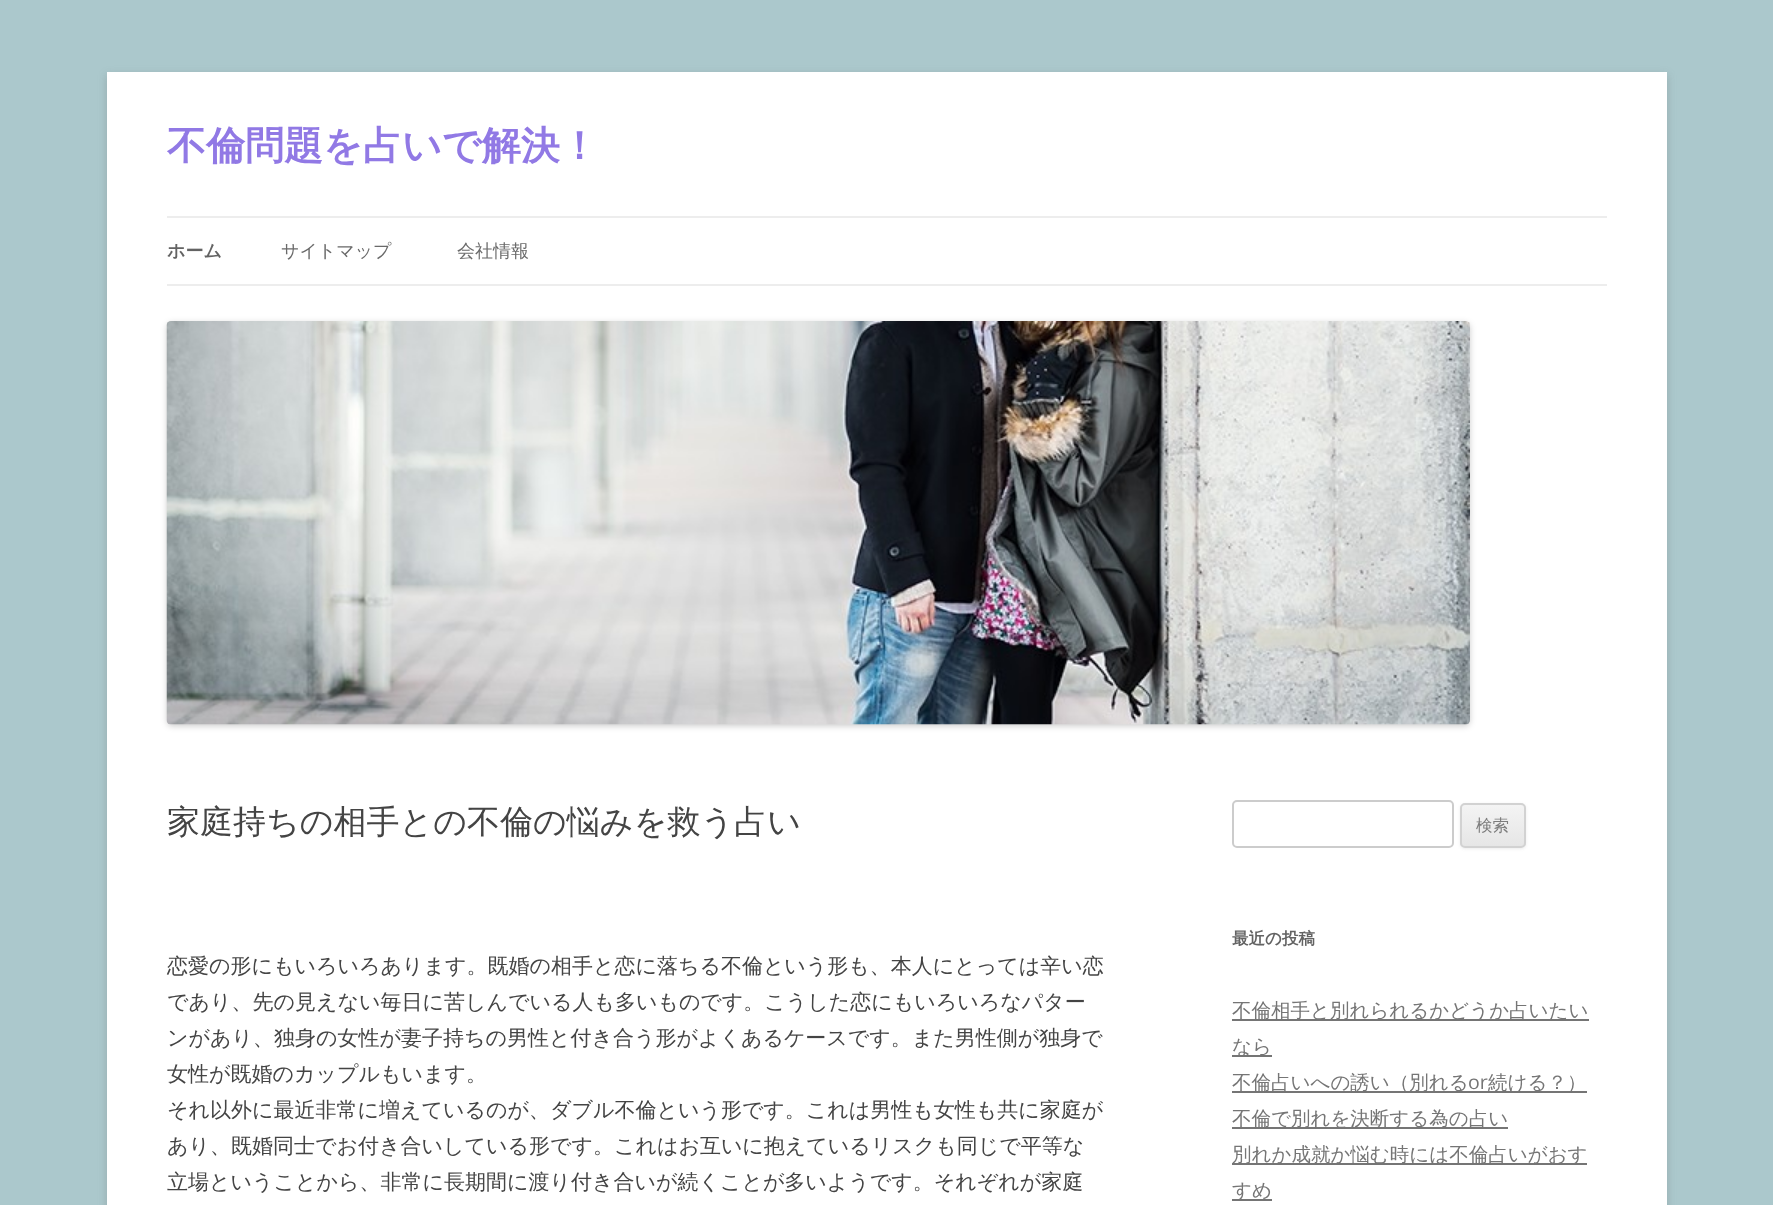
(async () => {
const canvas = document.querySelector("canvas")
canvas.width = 1773
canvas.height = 1205
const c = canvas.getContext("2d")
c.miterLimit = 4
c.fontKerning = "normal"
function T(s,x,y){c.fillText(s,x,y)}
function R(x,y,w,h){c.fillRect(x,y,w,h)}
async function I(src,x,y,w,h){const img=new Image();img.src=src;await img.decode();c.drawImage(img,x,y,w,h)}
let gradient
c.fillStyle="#abc8cc"
R(0,0,1773,1205)
c.fillStyle="#6464644d"
c.filter="blur(4.5px)"
c.beginPath()
c.rect(107,75,1560,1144)
c.fill()
c.filter="none"
c.fillStyle="#fff"
R(107,72,1560,1133)
c.font="bold 39px WenQuanYi Zen Hei"
c.fillStyle="#9179e5"
T("不倫問題を占いで解決！",167,159)
c.fillStyle="#ededed"
R(167,216,1440,2)
R(167,284,1440,2)
c.font="bold 18px WenQuanYi Zen Hei"
c.fillStyle="#636363"
T("ホーム",167,257)
c.font="500 18px WenQuanYi Zen Hei"
c.fillStyle="#6a6a6a"
T("サイトマップ",281,257)
T("会社情報",457,257)
c.fillStyle="#00000033"
c.filter="blur(3px)"
c.beginPath()
c.roundRect(167,323,1303,403,5)
c.fill()
c.filter="none"
await I("1.png",166,321,1304,404)
c.font="500 33px WenQuanYi Zen Hei"
c.fillStyle="#444"
T("家庭持ちの相手との不倫の悩みを救う占い",167,833)
c.font="500 21px WenQuanYi Zen Hei"
T("恋愛の形にもいろいろあります。既婚の相手と恋に落ちる不倫という形も、本人にとっては辛い恋",167,973)
T("であり、先の見えない毎日に苦しんでいる人も多いものです。こうした恋にもいろいろなパター",167,1009)
T("ンがあり、独身の女性が妻子持ちの男性と付き合う形がよくあるケースです。また男性側が独身で",167,1045)
T("女性が既婚のカップルもいます。",167,1081)
T("それ以外に最近非常に増えているのが、ダブル不倫という形です。これは男性も女性も共に家庭が",167,1117)
T("あり、既婚同士でお付き合いしている形です。これはお互いに抱えているリスクも同じで平等な",167,1153)
T("立場ということから、非常に長期間に渡り付き合いが続くことが多いようです。それぞれが家庭",167,1189)
c.beginPath()
c.roundRect(1233,801,220,46,4)
c.strokeStyle="#ccc"
c.lineWidth=2
c.stroke()
c.fillStyle="#4040401a"
c.filter="blur(1.5px)"
c.beginPath()
c.roundRect(1460,804,66,45,5)
c.fill()
c.filter="none"
c.save()
c.beginPath()
c.roundRect(1460,803,66,45,5)
c.clip()
gradient = c.createLinearGradient(1493,804,1493,846)
gradient.addColorStop(0,"#f4f4f4")
gradient.addColorStop(1,"#e6e6e6")
c.fillStyle = gradient
R(1460,804,66,42)
c.restore()
c.beginPath()
c.roundRect(1461,804,64,43,4)
c.strokeStyle="#d2d2d2"
c.stroke()
c.font="500 16.5px WenQuanYi Zen Hei"
c.fillStyle="#7c7c7c"
T("検索",1476,831)
c.font="bold 16.5px WenQuanYi Zen Hei"
c.fillStyle="#636363"
T("最近の投稿",1232,944)
c.fillStyle="#757575"
R(1232,1019,357,2)
c.font="500 19.5px WenQuanYi Zen Hei"
T("不倫相手と別れられるかどうか占いたい",1232,1017)
R(1232,1055,40,2)
T("なら",1232,1053)
R(1232,1091,355,2)
T("不倫占いへの誘い（別れる",1232,1089)
c.font="19.5px Open Sans"
T("or",1468,1089)
c.font="500 19.5px WenQuanYi Zen Hei"
T("続ける？）",1488,1089)
R(1232,1127,276,2)
T("不倫で別れを決断する為の占い",1232,1125)
R(1232,1163,355,2)
T("別れか成就か悩む時には不倫占いがおす",1232,1161)
R(1232,1199,40,2)
T("すめ",1232,1197)
})()
